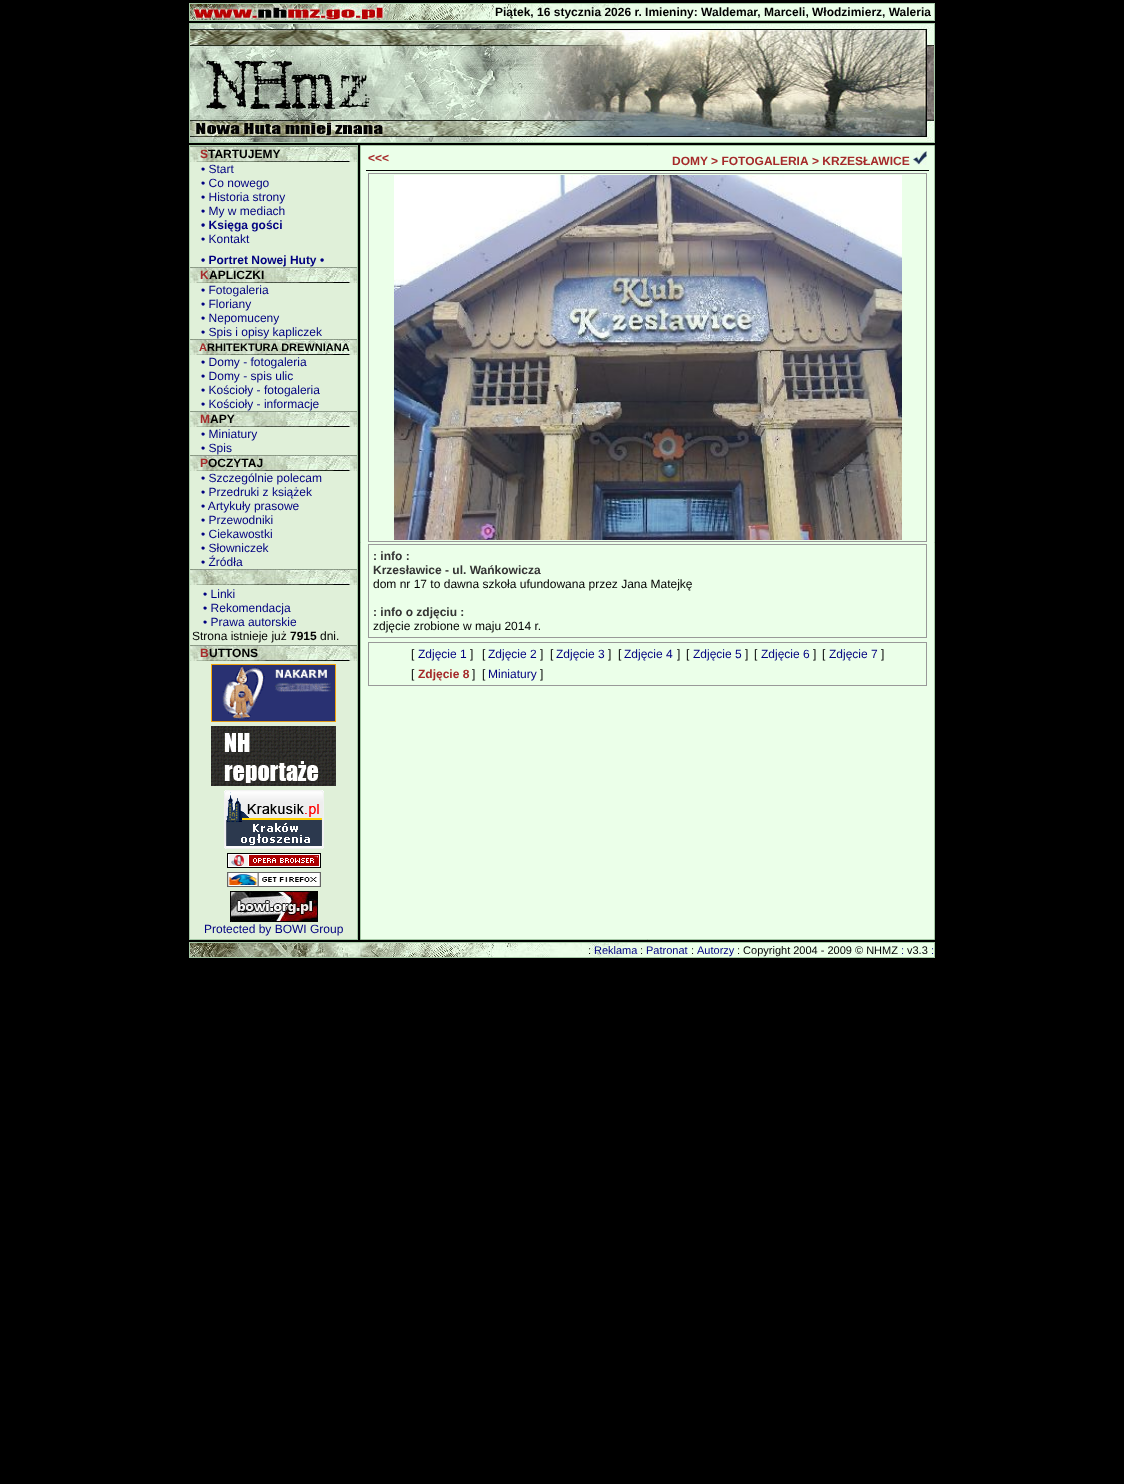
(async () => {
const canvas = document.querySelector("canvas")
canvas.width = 1124
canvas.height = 1484
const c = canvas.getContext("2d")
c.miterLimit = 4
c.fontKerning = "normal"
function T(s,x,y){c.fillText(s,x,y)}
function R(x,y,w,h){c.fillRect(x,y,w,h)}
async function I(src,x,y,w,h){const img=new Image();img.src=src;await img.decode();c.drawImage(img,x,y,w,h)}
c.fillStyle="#000"
R(0,0,1124,1484)
c.fillStyle="#ebffe9"
R(662,4,272,16)
await I("1.png",190,4,472,16)
c.strokeStyle="#a6c9a6"
c.strokeRect(189.5,3.5,745,17)
c.font="bold 12px Liberation Sans"
c.fillStyle="#000"
T("Piątek, 16 stycznia 2026 r. Imieniny: Waldemar, Marceli, Włodzimierz, Waleria",495,16)
await I("2.png",190,24,744,118)
c.strokeRect(189.5,23.5,745,119)
c.fillStyle="#e0f0d9"
R(190,162,167,777)
c.strokeRect(189.5,145.5,168,794)
await I("3.png",190,146,167,16)
c.fillStyle="#a52a2a"
T("S",200,158)
c.fillStyle="#000"
T("TARTUJEMY",208,158)
c.font="12px Liberation Sans"
c.fillStyle="#000080"
T("• Start",201,173)
T("• Co nowego",201,187)
T("• Historia strony",201,201)
T("• My w mediach",201,215)
c.font="bold 12px Liberation Sans"
T("• Księga gości",201,229)
c.font="12px Liberation Sans"
T("• Kontakt",201,243)
c.font="bold 12px Liberation Sans"
T("• Portret Nowej Huty •",201,264)
await I("3.png",190,267,167,16)
c.fillStyle="#a52a2a"
T("K",200,279)
c.fillStyle="#000"
T("APLICZKI",209,279)
c.font="12px Liberation Sans"
c.fillStyle="#000080"
T("• Fotogaleria",201,294)
T("• Floriany",201,308)
T("• Nepomuceny",201,322)
T("• Spis i opisy kapliczek",201,336)
await I("3.png",190,339,167,16)
c.font="bold 11px Liberation Sans"
c.fillStyle="#a52a2a"
T("A",199,351)
c.fillStyle="#000"
T("RHITEKTURA DREWNIANA",207,351)
c.font="12px Liberation Sans"
c.fillStyle="#000080"
T("• Domy - fotogaleria",201,366)
T("• Domy - spis ulic",201,380)
T("• Kościoły - fotogaleria",201,394)
T("• Kościoły - informacje",201,408)
await I("3.png",190,411,167,16)
c.font="bold 12px Liberation Sans"
c.fillStyle="#a52a2a"
T("M",200,423)
c.fillStyle="#000"
T("APY",210,423)
c.font="12px Liberation Sans"
c.fillStyle="#000080"
T("• Miniatury",201,438)
T("• Spis",201,452)
await I("3.png",190,455,167,16)
c.font="bold 12px Liberation Sans"
c.fillStyle="#a52a2a"
T("P",200,467)
c.fillStyle="#000"
T("OCZYTAJ",208,467)
c.font="12px Liberation Sans"
c.fillStyle="#000080"
T("• Szczególnie polecam",201,482)
T("• Przedruki z książek",201,496)
T("• Artykuły prasowe",201,510)
T("• Przewodniki",201,524)
T("• Ciekawostki",201,538)
T("• Słowniczek",201,552)
T("• Źródła",201,566)
await I("3.png",190,569,167,16)
T("• Linki",203,598)
T("• Rekomendacja",203,612)
T("• Prawa autorskie",203,626)
c.fillStyle="#000"
T("Strona istnieje już",192,640)
c.font="bold 12px Liberation Sans"
T("7915",290,640)
c.font="12px Liberation Sans"
T("dni.",320,640)
await I("3.png",190,645,167,16)
c.font="bold 12px Liberation Sans"
c.fillStyle="#a52a2a"
T("B",200,657)
c.fillStyle="#000"
T("UTTONS",209,657)
await I("4.png",211,664,125,58)
await I("5.png",211,726,125,60)
await I("6.png",224,790,100,59)
await I("7.png",227,853,94,15)
await I("8.png",227,872,94,15)
await I("9.png",230,891,88,31)
c.font="12px Liberation Sans"
c.fillStyle="#000080"
T("Protected by BOWI Group",204,933)
c.fillStyle="#ebffe9"
c.beginPath()
c.rect(360.5,145.5,574,794)
c.fill()
c.stroke()
c.fillStyle="#000"
R(366,170,563,1)
c.font="bold 12px Liberation Sans"
c.fillStyle="#a52a2a"
T("<<<",368,162)
T("DOMY > FOTOGALERIA",672,165)
T("> KRZESŁAWICE",812,165)
await I("10.png",913,151,14,14)
c.strokeStyle="#999"
c.strokeRect(368.5,173.5,558,368)
await I("11.png",394,175,508,365)
c.strokeRect(368.5,544.5,558,93)
c.fillStyle="#333"
T(": info :",373,560)
T("Krzesławice - ul. Wańkowicza",373,574)
c.font="12px Liberation Sans"
c.fillStyle="#000"
T("dom nr 17 to dawna szkoła ufundowana przez Jana Matejkę",373,588)
c.font="bold 12px Liberation Sans"
c.fillStyle="#333"
T(": info o zdjęciu :",373,616)
c.font="12px Liberation Sans"
c.fillStyle="#000"
T("zdjęcie zrobione w maju 2014 r.",373,630)
c.strokeRect(368.5,642.5,558,43)
T("[",411,658)
c.fillStyle="#000080"
T("Zdjęcie 1",418,658)
c.fillStyle="#000"
T("]",470,658)
T("[",482,658)
c.fillStyle="#000080"
T("Zdjęcie 2",488,658)
c.fillStyle="#000"
T("]",540,658)
T("[",550,658)
c.fillStyle="#000080"
T("Zdjęcie 3",556,658)
c.fillStyle="#000"
T("]",608,658)
T("[",618,658)
c.fillStyle="#000080"
T("Zdjęcie 4",624,658)
c.fillStyle="#000"
T("]",677,658)
T("[",686,658)
c.fillStyle="#000080"
T("Zdjęcie 5",693,658)
c.fillStyle="#000"
T("]",745,658)
T("[",754,658)
c.fillStyle="#000080"
T("Zdjęcie 6",761,658)
c.fillStyle="#000"
T("]",813,658)
T("[",822,658)
c.fillStyle="#000080"
T("Zdjęcie 7",829,658)
c.fillStyle="#000"
T("]",881,658)
T("[",411,678)
c.font="bold 12px Liberation Sans"
c.fillStyle="#a52a2a"
T("Zdjęcie 8",418,678)
c.font="12px Liberation Sans"
c.fillStyle="#000"
T("]",472,678)
T("[",482,678)
c.fillStyle="#000080"
T("Miniatury",488,678)
c.fillStyle="#000"
T("]",540,678)
c.fillStyle="#ebffe9"
R(662,943,272,14)
await I("12.png",190,943,472,14)
c.strokeStyle="#a6c9a6"
c.strokeRect(189.5,942.5,745,15)
c.font="11px Liberation Sans"
c.fillStyle="#000"
T(":",588,954)
c.fillStyle="#000080"
T("Reklama",594,954)
c.fillStyle="#000"
T(":",640,954)
c.fillStyle="#000080"
T("Patronat",646,954)
c.fillStyle="#000"
T(":",691,954)
c.fillStyle="#000080"
T("Autorzy",697,954)
c.fillStyle="#000"
T(": Copyright 2004 - 2009 © NHMZ",737,954)
c.fillStyle="#000080"
T(":",901,954)
c.fillStyle="#000"
T("v3.3",907,954)
c.fillStyle="#000080"
T(":",931,954)
})()
